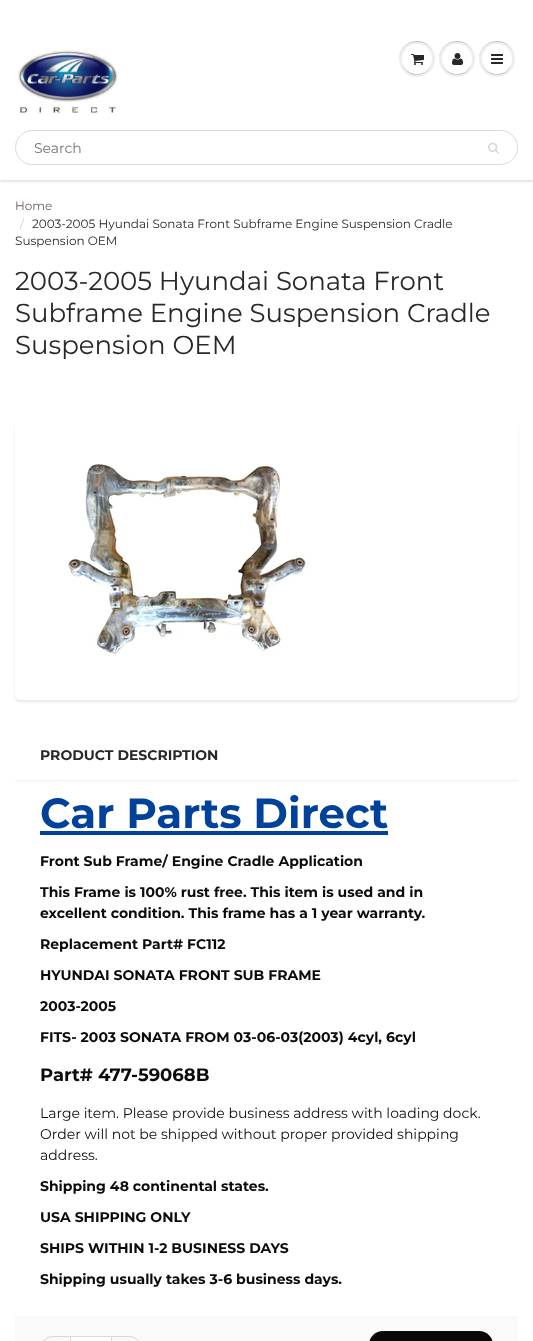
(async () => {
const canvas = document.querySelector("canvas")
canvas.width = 533
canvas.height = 1341
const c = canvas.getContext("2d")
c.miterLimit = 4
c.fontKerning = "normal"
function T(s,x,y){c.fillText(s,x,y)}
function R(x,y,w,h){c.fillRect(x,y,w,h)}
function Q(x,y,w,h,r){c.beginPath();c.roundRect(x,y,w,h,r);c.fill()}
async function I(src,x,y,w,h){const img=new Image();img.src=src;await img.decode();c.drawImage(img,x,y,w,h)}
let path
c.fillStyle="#fff"
R(0,0,533,1341)
c.save()
c.beginPath()
c.rect(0,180,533,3)
c.clip()
c.fillStyle="#0b191c1f"
c.filter="blur(1px)"
c.beginPath()
c.rect(0,34,533,148)
c.fill()
c.filter="none"
c.restore()
await I("1.png",17,50,101,63)
c.fillStyle="#edefef"
c.beginPath()
c.arc(417,59,18,0,7)
c.fill()
c.fillStyle="#c9cbcb"
path = new Path2D("M417 42c12 0 18 8.5 18 17.5c0-3.5-1-7.5-3-10.5c-10-15-33.5-7.5-33 10.5c0-9 6-17.5 18-17.5z")
c.fill(path)
path = new Path2D("M402 59.5c0 3 1 6.5 2.5 9c8.5 12.5 28 6 27.5-9c-.5 19-29.5 19-30 0z")
c.fill(path)
c.fillStyle="#fff"
c.beginPath()
c.arc(417,59,15,0,7)
c.fill()
path = new Path2D("M417 45c10 0 15 7 15 14.5c0-3-1-6.5-2.5-9c-8.5-12.5-28-6-27.5 9c0-7.5 5-14.5 15-14.5z")
c.fill(path)
await I("2.png",411,54,13,11)
c.fillStyle="#edefef"
c.beginPath()
c.arc(457,59,18,0,7)
c.fill()
c.fillStyle="#c9cbcb"
path = new Path2D("M457 42c12 0 18 8.5 18 17.5c0-3.5-1-7.5-3-10.5c-10-15-33.5-7.5-33 10.5c0-9 6-17.5 18-17.5z")
c.fill(path)
path = new Path2D("M442 59.5c-.5 15 19 21.5 27.5 9c1.5-2.5 2.5-6 2.5-9c-.5 19-29.5 19-30 0z")
c.fill(path)
c.fillStyle="#fff"
c.beginPath()
c.arc(457,59,15,0,7)
c.fill()
path = new Path2D("M457 45c10 0 15 7 15 14.5c0-3-1-6.5-2.5-9c-8.5-12.5-28-6-27.5 9c0-7.5 5-14.5 15-14.5z")
c.fill(path)
await I("3.png",452,53,11,12)
c.fillStyle="#edefef"
c.beginPath()
c.arc(497,59,18,0,7)
c.fill()
c.fillStyle="#c9cbcb"
path = new Path2D("M497 42c12 0 18 8.5 18 17.5c0-3.5-1-7.5-3-10.5c-10-15-33.5-7.5-33 10.5c0-9 6-17.5 18-17.5z")
c.fill(path)
path = new Path2D("M482 59.5c-.5 15 19 21.5 27.5 9c1.5-2.5 2.5-6 2.5-9c-.5 19-29.5 19-30 0z")
c.fill(path)
c.fillStyle="#fff"
c.beginPath()
c.arc(497,59,15,0,7)
c.fill()
path = new Path2D("M497 45c10 0 15 7 15 14.5c0-3-1-6.5-2.5-9c-8.5-12.5-28-6-27.5 9c0-7.5 5-14.5 15-14.5z")
c.fill(path)
await I("4.png",491,54,12,10)
c.beginPath()
c.roundRect(15.5,130.5,502,34,17)
c.strokeStyle="#d7dbdb"
c.stroke()
c.font="14px Montserrat"
c.fillStyle="#757575"
T("Search",34,153)
await I("5.png",488,142,11,12)
c.font="12px Montserrat"
c.fillStyle="#70635d"
T("Home",15,210)
c.fillStyle="#ccc"
T("/",20,228)
c.fillStyle="#282827"
T("2003-2005 Hyundai Sonata Front Subframe Engine Suspension Cradle",32,228)
T("Suspension OEM",15,245)
c.font="26px Montserrat"
T("2003-2005 Hyundai Sonata Front",15,290)
T("Subframe Engine Suspension Cradle",15,322)
T("Suspension OEM",15,354)
c.fillStyle="#0b191c1a"
c.filter="blur(1px)"
c.beginPath()
c.roundRect(15,423,503,279,5)
c.fill()
c.filter="none"
c.fillStyle="#fff"
Q(15,421,503,279,5)
await I("6.png",67,464,242,192)
c.fillStyle="#efefef"
R(15,780,503,1)
c.font="bold 14px Montserrat"
c.fillStyle="#282827"
T("PRODUCT DESCRIPTION",40,760)
c.font="bold 42px Montserrat"
c.fillStyle="#00429a"
T("Car Parts Direct",40,828)
R(40,831,348,4)
c.font="bold 14px Montserrat"
c.fillStyle="#0b0b0b"
T("Front Sub Frame/ Engine Cradle Application",40,866)
T("This Frame is 100% rust free. This item is used and in",40,897)
T("excellent condition. This frame has a 1 year warranty.",40,918)
T("Replacement Part# FC112",40,949)
T("HYUNDAI SONATA FRONT SUB FRAME",40,980)
T("2003-2005",40,1011)
T("FITS- 2003 SONATA FROM 03-06-03(2003) 4cyl, 6cyl",40,1042)
c.font="bold 18px Montserrat"
T("Part# 477-59068B",40,1081)
c.font="14px Montserrat"
T("Large item. Please provide business address with loading dock.",40,1118)
T("Order will not be shipped without proper provided shipping",40,1139)
T("address.",40,1160)
c.font="bold 14px Montserrat"
T("Shipping 48 continental states.",40,1191)
T("USA SHIPPING ONLY",40,1222)
T("SHIPS WITHIN 1-2 BUSINESS DAYS",40,1253)
T("Shipping usually takes 3-6 business days.",40,1284)
c.fillStyle="#fafafa"
R(15,1316,503,25)
c.fillStyle="#d7dbdb"
path = new Path2D("M53 1336h17v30h-17c-7 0-13-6-13-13v-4c0-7 6-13 13-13zm0 1h17v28h-17c-6.5 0-12-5.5-12-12v-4c0-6.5 5.5-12 12-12z")
c.fill(path,"evenodd")
c.fillStyle="#fff"
c.beginPath()
c.rect(70.5,1336.5,41,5)
c.fill()
c.stroke()
c.fillStyle="#d7dbdb"
path = new Path2D("M112 1336h17c7 0 13 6 13 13v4c0 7-6 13-13 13h-17zm0 1h17c6.5 0 12 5.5 12 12v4c0 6.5-5.5 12-12 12h-17z")
c.fill(path,"evenodd")
c.fillStyle="#090909"
Q(369,1331,124,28,18)
})()
